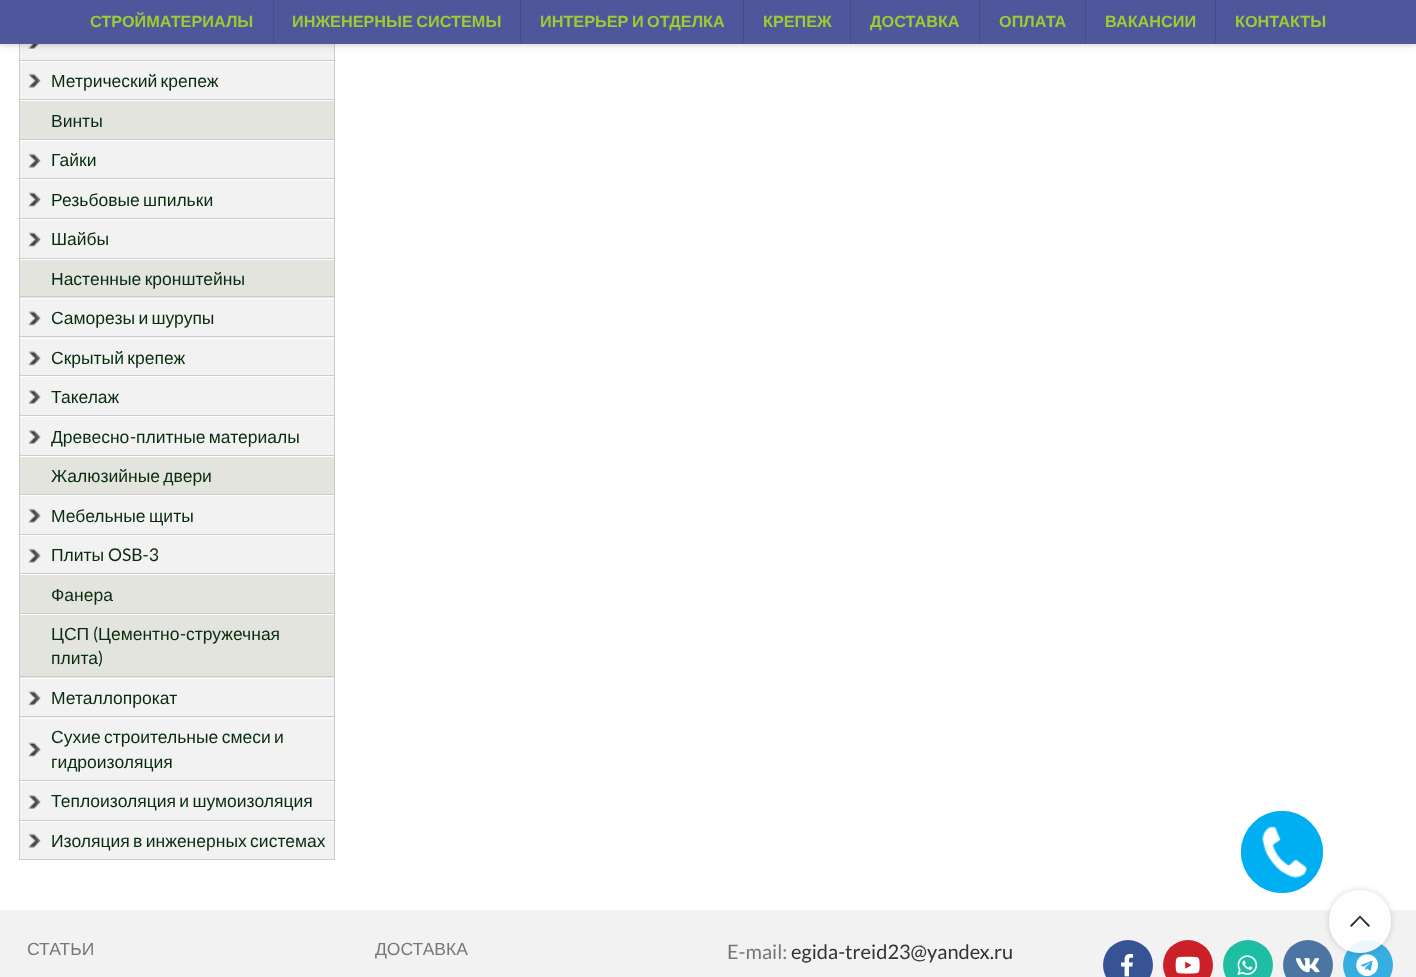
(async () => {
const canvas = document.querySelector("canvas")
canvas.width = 1416
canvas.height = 977
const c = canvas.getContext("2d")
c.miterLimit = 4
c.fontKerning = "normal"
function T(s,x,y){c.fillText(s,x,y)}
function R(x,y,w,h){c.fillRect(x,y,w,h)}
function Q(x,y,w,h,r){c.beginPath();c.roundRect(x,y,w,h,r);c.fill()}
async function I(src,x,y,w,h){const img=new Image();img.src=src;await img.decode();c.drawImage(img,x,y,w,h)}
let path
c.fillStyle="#fff"
R(0,0,1416,977)
c.fillStyle="#f2f2f2"
R(20,44,314,815)
c.fillStyle="#ccc"
R(334,44,1,17)
R(19,60,316,1)
R(19,44,1,17)
await I("1.png",28,44,13,6)
c.fillStyle="#0000001a"
c.filter="blur(2px)"
c.beginPath()
c.rect(0,1,1416,44)
c.fill()
c.filter="none"
c.filter="blur(5px)"
c.beginPath()
c.rect(0,1,1416,44)
c.fill()
c.filter="none"
c.fillStyle="#4f569c"
R(0,0,1416,44)
c.font="bold 16.25px Liberation Sans"
c.fillStyle="#9acd32"
T("СТРОЙМАТЕРИАЛЫ",90,27)
c.fillStyle="#474d8b"
R(273,0,1,44)
c.wordSpacing="-1px"
c.fillStyle="#9acd32"
T("ИНЖЕНЕРНЫЕ СИСТЕМЫ",292,27)
c.fillStyle="#474d8b"
R(520,0,1,44)
c.fillStyle="#9acd32"
T("ИНТЕРЬЕР И ОТДЕЛКА",540,27)
c.fillStyle="#474d8b"
R(743,0,1,44)
c.wordSpacing="0px"
c.fillStyle="#9acd32"
T("КРЕПЕЖ",763,27)
c.fillStyle="#474d8b"
R(850,0,1,44)
c.fillStyle="#9acd32"
T("ДОСТАВКА",870,27)
c.fillStyle="#474d8b"
R(979,0,1,44)
c.fillStyle="#9acd32"
T("ОПЛАТА",999,27)
c.fillStyle="#474d8b"
R(1085,0,1,44)
c.fillStyle="#9acd32"
T("ВАКАНСИИ",1105,27)
c.fillStyle="#474d8b"
R(1215,0,1,44)
c.fillStyle="#9acd32"
T("КОНТАКТЫ",1235,27)
c.fillStyle="#fff"
R(19,61,316,1)
c.fillStyle="#ccc"
R(334,61,1,39)
R(19,99,316,1)
R(19,61,1,39)
await I("2.png",28,73,13,16)
c.wordSpacing="-1.5px"
c.font="17.5px Liberation Sans"
c.fillStyle="#072b0d"
T("Метрический крепеж",51,87)
c.fillStyle="#e3e4de"
R(20,101,314,38)
c.fillStyle="#fff"
R(19,100,316,1)
c.fillStyle="#ccc"
R(334,100,1,40)
R(19,139,316,1)
R(19,100,1,40)
c.wordSpacing="0px"
c.fillStyle="#072b0d"
T("Винты",51,127)
c.fillStyle="#fff"
R(19,140,316,1)
c.fillStyle="#ccc"
R(334,140,1,39)
R(19,178,316,1)
R(19,140,1,39)
await I("2.png",28,153,13,16)
c.fillStyle="#072b0d"
T("Гайки",51,166)
c.fillStyle="#fff"
R(19,179,316,1)
c.fillStyle="#ccc"
R(334,179,1,40)
R(19,218,316,1)
R(19,179,1,40)
await I("3.png",28,192,13,16)
c.wordSpacing="-1.5px"
c.fillStyle="#072b0d"
T("Резьбовые шпильки",51,206)
c.fillStyle="#fff"
R(19,219,316,1)
c.fillStyle="#ccc"
R(334,219,1,40)
R(19,258,316,1)
R(19,219,1,40)
await I("3.png",28,232,13,16)
c.wordSpacing="0px"
c.fillStyle="#072b0d"
T("Шайбы",51,245)
c.fillStyle="#e3e4de"
R(20,260,314,38)
c.fillStyle="#fff"
R(19,259,316,1)
c.fillStyle="#ccc"
R(334,259,1,39)
R(19,296,316,1)
R(19,259,1,39)
c.wordSpacing="-1.5px"
c.fillStyle="#072b0d"
T("Настенные кронштейны",51,285)
c.fillStyle="#fff"
R(19,298,316,1)
c.fillStyle="#ccc"
R(334,298,1,40)
R(19,336,316,1)
R(19,298,1,40)
await I("4.png",28,311,13,15)
c.fillStyle="#072b0d"
T("Саморезы и шурупы",51,324)
c.fillStyle="#fff"
R(19,338,316,1)
c.fillStyle="#ccc"
R(334,338,1,38)
R(19,375,316,1)
R(19,338,1,38)
await I("4.png",28,351,13,15)
c.fillStyle="#072b0d"
T("Скрытый крепеж",51,364)
c.fillStyle="#fff"
R(19,376,316,1)
c.fillStyle="#ccc"
R(334,376,1,40)
R(19,415,316,1)
R(19,376,1,40)
await I("5.png",28,390,13,15)
c.wordSpacing="0px"
c.fillStyle="#072b0d"
T("Такелаж",51,403)
c.fillStyle="#fff"
R(19,416,316,1)
c.fillStyle="#ccc"
R(334,416,1,40)
R(19,455,316,1)
R(19,416,1,40)
await I("5.png",28,430,13,15)
c.fillStyle="#072b0d"
T("Древесно",51,443)
c.font="17.5px Lato"
T("-",130,443)
c.wordSpacing="-1.5px"
c.font="17.5px Liberation Sans"
T("плитные материалы",136,443)
c.fillStyle="#e3e4de"
R(20,457,314,37)
c.fillStyle="#fff"
R(19,456,316,1)
c.fillStyle="#ccc"
R(334,456,1,39)
R(19,494,316,1)
R(19,456,1,39)
c.fillStyle="#072b0d"
T("Жалюзийные двери",51,482)
c.fillStyle="#fff"
R(19,495,316,1)
c.fillStyle="#ccc"
R(334,495,1,40)
R(19,534,316,1)
R(19,495,1,40)
await I("2.png",28,508,13,16)
c.fillStyle="#072b0d"
T("Мебельные щиты",51,522)
c.fillStyle="#fff"
R(19,535,316,1)
c.fillStyle="#ccc"
R(334,535,1,39)
R(19,573,316,1)
R(19,535,1,39)
await I("2.png",28,548,13,16)
c.wordSpacing="0px"
c.fillStyle="#072b0d"
T("Плиты",51,561)
c.font="17.5px Lato"
T("OSB-3",108,561)
c.fillStyle="#e3e4de"
R(20,575,314,38)
c.fillStyle="#fff"
R(19,574,316,1)
c.fillStyle="#ccc"
R(334,574,1,40)
R(19,613,316,1)
R(19,574,1,40)
c.font="17.5px Liberation Sans"
c.fillStyle="#072b0d"
T("Фанера",51,601)
c.fillStyle="#e3e4de"
R(20,615,314,63)
c.fillStyle="#fff"
R(19,614,316,1)
c.fillStyle="#ccc"
R(334,614,1,64)
R(19,676,316,1)
R(19,614,1,64)
c.fillStyle="#072b0d"
T("ЦСП",51,640)
c.font="17.5px Lato"
T("(",93,640)
c.font="17.5px Liberation Sans"
T("Цементно",98,640)
c.font="17.5px Lato"
T("-",180,640)
c.font="17.5px Liberation Sans"
T("стружечная",186,640)
T("плита",51,664)
c.font="17.5px Lato"
T(")",98,664)
c.fillStyle="#fff"
R(19,678,316,1)
c.fillStyle="#ccc"
R(334,678,1,40)
R(19,716,316,1)
R(19,678,1,40)
await I("4.png",28,691,13,15)
c.font="17.5px Liberation Sans"
c.fillStyle="#072b0d"
T("Металлопрокат",51,704)
c.fillStyle="#fff"
R(19,718,316,1)
c.fillStyle="#ccc"
R(334,718,1,63)
R(19,780,316,1)
R(19,718,1,63)
c.wordSpacing="-1.5px"
c.fillStyle="#072b0d"
T("Сухие строительные смеси и",51,743)
await I("3.png",28,742,13,16)
c.wordSpacing="0px"
T("гидроизоляция",51,768)
c.fillStyle="#fff"
R(19,781,316,1)
c.fillStyle="#ccc"
R(334,781,1,40)
R(19,820,316,1)
R(19,781,1,40)
await I("5.png",28,795,13,15)
c.wordSpacing="-1.5px"
c.fillStyle="#072b0d"
T("Теплоизоляция и шумоизоляция",51,807)
c.fillStyle="#fff"
R(19,821,316,1)
c.fillStyle="#ccc"
R(334,821,1,39)
R(19,859,316,1)
R(19,821,1,39)
await I("2.png",28,833,13,16)
c.fillStyle="#072b0d"
T("Изоляция в инженерных системах",51,847)
c.fillStyle="#f2f2f2"
R(0,910,1416,67)
c.wordSpacing="0px"
c.fillStyle="#777"
T("СТАТЬИ",27,955)
T("ДОСТАВКА",375,955)
c.font="20px Lato"
T("E-mail:",727,959)
c.fillStyle="#333"
T("egida-treid23@yandex.ru",791,959)
c.fillStyle="#365493"
c.beginPath()
c.arc(1128,965,25,0,7)
c.fill()
await I("6.png",1121,953,13,24)
c.fillStyle="#cb2027"
c.beginPath()
c.arc(1188,965,25,0,7)
c.fill()
await I("7.png",1175,956,25,18)
c.fillStyle="#1ebea5"
c.beginPath()
c.arc(1248,965,25,0,7)
c.fill()
await I("8.png",1237,955,21,20)
c.fillStyle="#4c75a3"
c.beginPath()
c.arc(1308,965,25,0,7)
c.fill()
await I("9.png",1295,958,25,15)
c.fillStyle="#37aee2"
c.beginPath()
c.arc(1368,965,25,0,7)
c.fill()
await I("10.png",1356,954,22,23)
c.save()
path = new Path2D("M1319 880h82v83h-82zm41 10c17 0 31 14 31 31v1c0 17-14 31-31 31c-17 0-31-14-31-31v-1c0-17 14-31 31-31z")
c.clip(path,"evenodd")
c.fillStyle="#0000002b"
c.filter="blur(3px)"
c.beginPath()
c.roundRect(1329,890,62,63,31)
c.fill()
c.filter="none"
c.restore()
c.beginPath()
c.arc(1282,852,40.5,0,7)
c.strokeStyle="#00aff2"
c.stroke()
c.fillStyle="#00aff2"
c.beginPath()
c.arc(1282,852,41,0,7)
c.fill()
await I("11.png",1262,826,45,52)
c.fillStyle="#ffffffe6"
Q(1329,890,62,63,31)
c.fillStyle="#333"
path = new Path2D("M1360 915.5l10 10l-1.5 1.5l-8.5-9l-8.5 9l-1.5-1.5z")
c.fill(path)
})()
